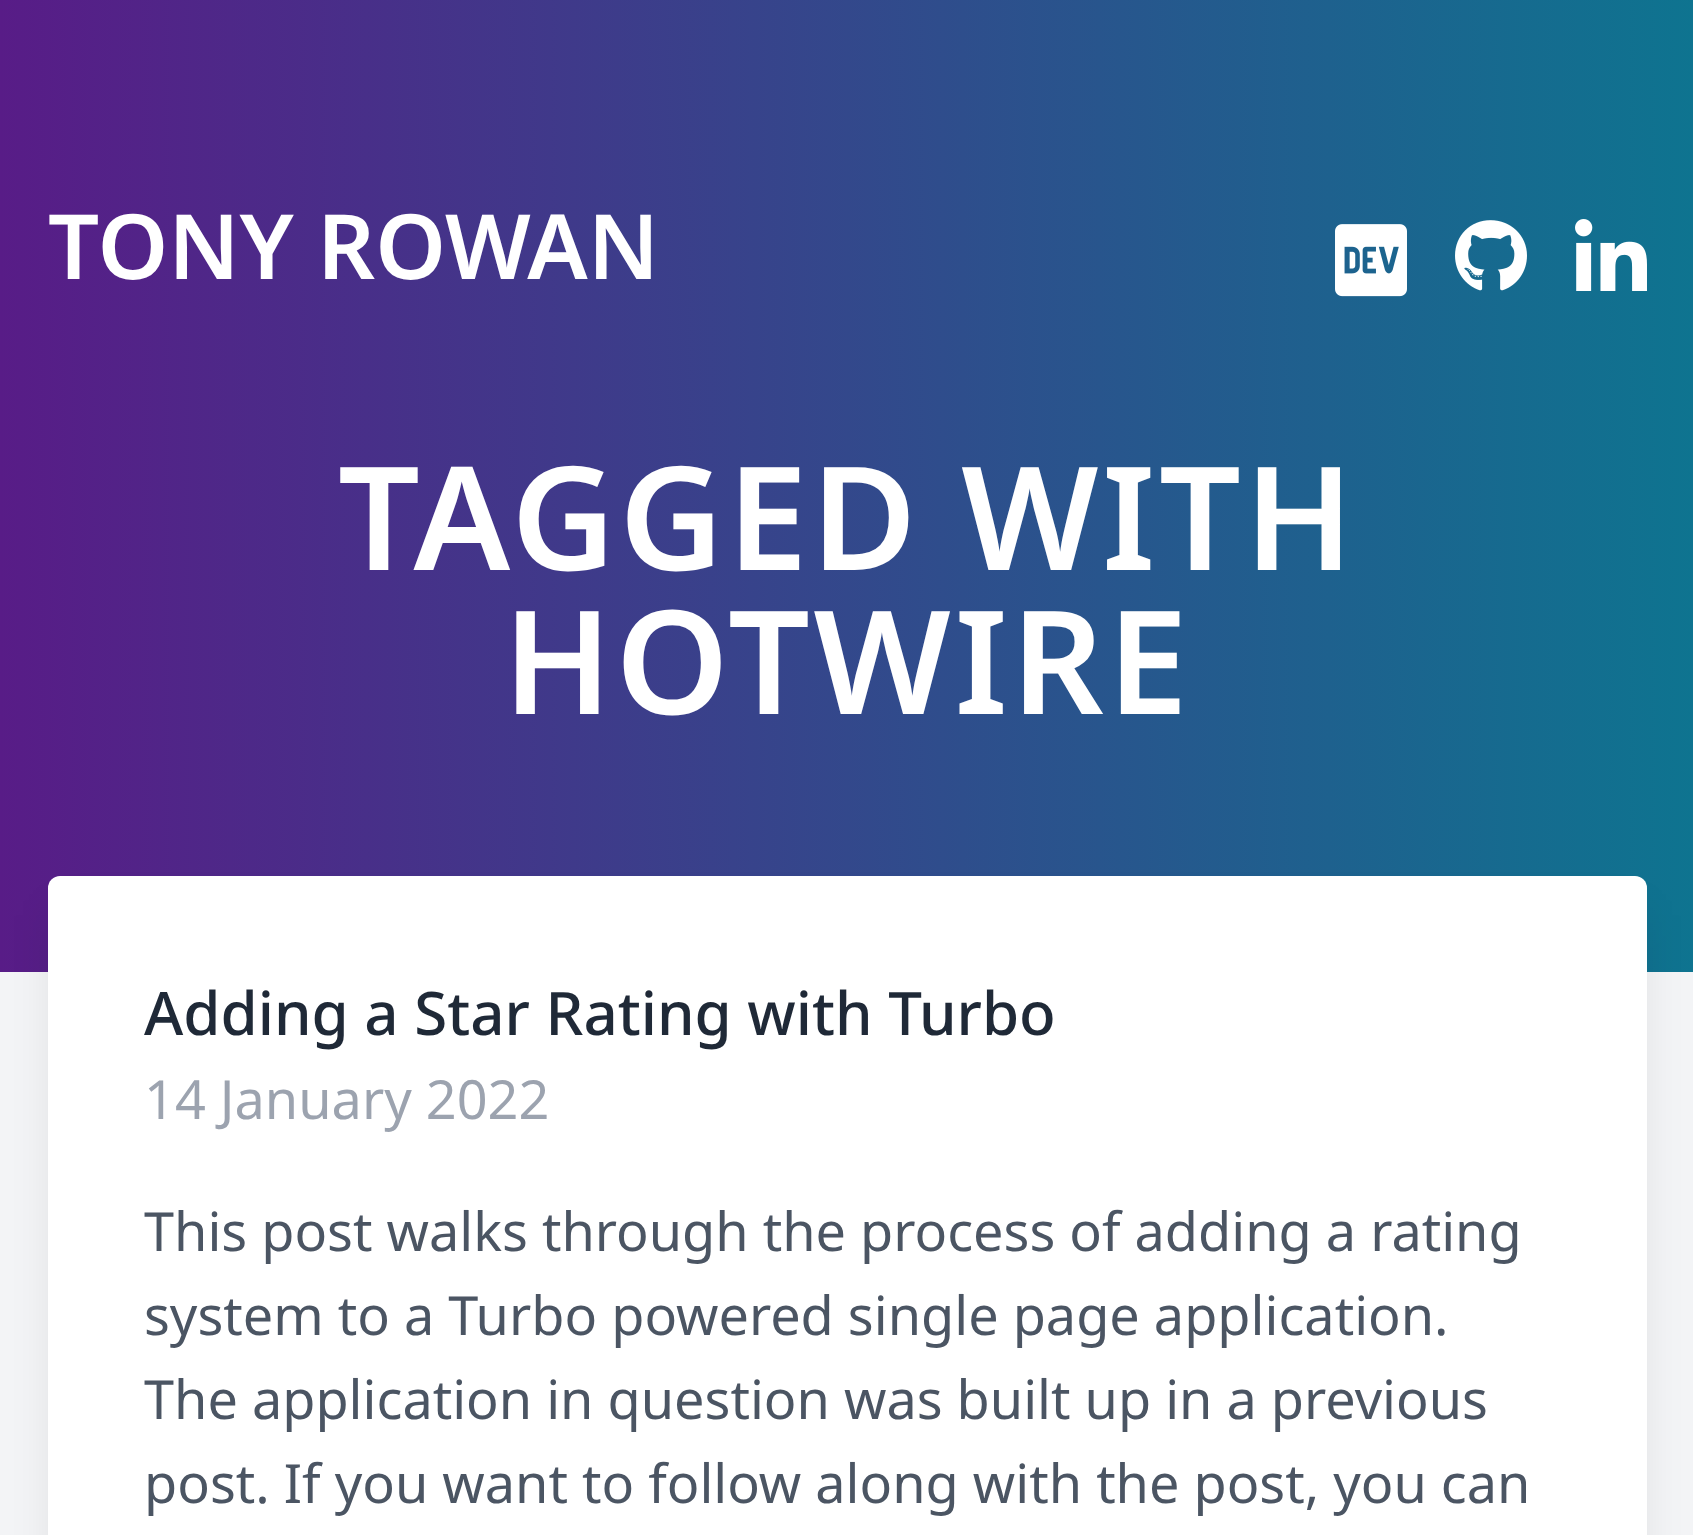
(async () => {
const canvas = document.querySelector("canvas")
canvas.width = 1693
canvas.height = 1535
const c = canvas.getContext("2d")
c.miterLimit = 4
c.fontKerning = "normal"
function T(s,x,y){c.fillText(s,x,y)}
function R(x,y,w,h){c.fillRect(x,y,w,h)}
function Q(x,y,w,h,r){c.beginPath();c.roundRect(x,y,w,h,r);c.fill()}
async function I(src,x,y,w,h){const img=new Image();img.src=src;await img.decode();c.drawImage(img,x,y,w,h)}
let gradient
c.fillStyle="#f3f4f6"
R(0,0,1693,1535)
gradient = c.createLinearGradient(0,486,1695,486)
gradient.addColorStop(0,"#581c87")
gradient.addColorStop(1,"#0e7490")
c.fillStyle = gradient
R(0,0,1693,972)
c.font="600 90px Noto Sans"
c.fillStyle="#fff"
T("TONY ROWAN",48,279)
await I("1.png",1335,224,72,73)
await I("2.png",1455,220,72,71)
await I("3.png",1575,219,72,72)
c.letterSpacing="3.6px"
c.font="600 144px Noto Sans"
T("TAGGED WITH",338,570)
T("HOTWIRE",503,714)
c.fillStyle="#0000001a"
c.filter="blur(22.5px)"
c.beginPath()
c.roundRect(57,915,1581,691,3)
c.fill()
c.filter="none"
c.fillStyle="#fff"
Q(48,876,1599,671,12)
c.letterSpacing="0px"
c.font="500 60px Noto Sans"
c.fillStyle="#1f2937"
T("Adding a Star Rating with Turbo",144,1035)
c.font="54px Noto Sans"
c.fillStyle="#9ca3af"
T("14 January 2022",144,1119)
c.fillStyle="#4b5563"
T("This post walks through the process of adding a rating",144,1251)
T("system to a Turbo powered single page application.",144,1335)
T("The application in question was built up in a previous",144,1419)
T("post. If you want to follow along with the post, you can",144,1503)
})()
